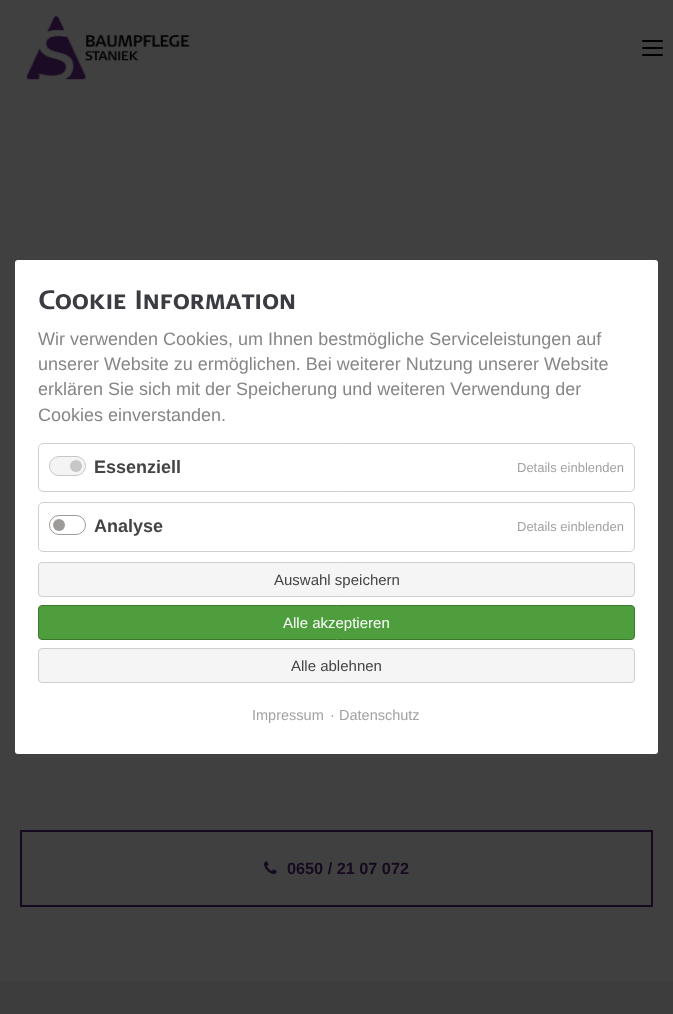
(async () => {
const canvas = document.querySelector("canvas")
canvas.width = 673
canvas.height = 1014
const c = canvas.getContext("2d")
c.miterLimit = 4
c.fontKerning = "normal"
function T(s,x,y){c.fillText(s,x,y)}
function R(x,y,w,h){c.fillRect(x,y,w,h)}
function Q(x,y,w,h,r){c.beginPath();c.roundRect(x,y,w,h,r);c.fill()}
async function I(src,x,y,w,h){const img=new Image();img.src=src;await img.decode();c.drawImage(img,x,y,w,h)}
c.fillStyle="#404040"
R(0,0,673,1014)
c.fillStyle="#fff"
Q(15,260,643,494,3)
c.font="bold 26.5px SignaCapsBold"
c.fillStyle="#3b3c42"
T("Cookie Information",38,309)
c.font="18px Liberation Sans"
c.fillStyle="#868686"
T("Wir verwenden Cookies, um Ihnen bestmögliche Serviceleistungen auf",38,345)
T("unserer Website zu ermöglichen. Bei weiterer Nutzung unserer Website",38,370)
T("erklären Sie sich mit der Speicherung und weiteren Verwendung der",38,395)
T("Cookies einverstanden.",38,421)
c.beginPath()
c.roundRect(38.5,443.5,596,48,4.5)
c.strokeStyle="#d0d0d0"
c.stroke()
c.fillStyle="#f4f4f4"
c.beginPath()
c.roundRect(49.5,456.5,36,19,9.5)
c.fill()
c.strokeStyle="#c8c7c5"
c.stroke()
c.font="bold 18px Liberation Sans"
c.fillStyle="#444"
T("Essenziell",94,473)
c.fillStyle="#c8c7c5"
c.beginPath()
c.arc(76,466,6,0,7)
c.fill()
c.font="13px Liberation Sans"
c.fillStyle="#a2a2a2"
T("Details einblenden",517,472)
c.beginPath()
c.roundRect(38.5,502.5,596,49,4.5)
c.strokeStyle="#d0d0d0"
c.stroke()
c.beginPath()
c.roundRect(49.5,515.5,36,19,9.5)
c.strokeStyle="#9c9b99"
c.stroke()
c.font="bold 18px Liberation Sans"
c.fillStyle="#444"
T("Analyse",94,532)
c.fillStyle="#9c9b99"
c.beginPath()
c.arc(59,525,6,0,7)
c.fill()
c.font="13px Liberation Sans"
c.fillStyle="#a2a2a2"
T("Details einblenden",517,531)
c.fillStyle="#f5f5f5"
c.beginPath()
c.roundRect(38.5,562.5,596,34,3.5)
c.fill()
c.strokeStyle="#cfcfcf"
c.stroke()
c.font="15px Liberation Sans"
c.fillStyle="#444"
T("Auswahl speichern",274,585)
c.fillStyle="#4e9e3e"
c.beginPath()
c.roundRect(38.5,605.5,596,34,3.5)
c.fill()
c.strokeStyle="#3e7830"
c.stroke()
c.fillStyle="#fff"
T("Alle akzeptieren",283,628)
c.fillStyle="#f5f5f5"
c.beginPath()
c.roundRect(38.5,648.5,596,34,3.5)
c.fill()
c.strokeStyle="#cfcfcf"
c.stroke()
c.fillStyle="#444"
T("Alle ablehnen",291,671)
c.font="14.5px Liberation Sans"
c.fillStyle="#a2a2a2"
T("Impressum",252,720)
T("·",330,720)
T("Datenschutz",339,720)
await I("1.png",26,15,164,65)
c.fillStyle="#000"
Q(642,47,21,2,1)
Q(642,40,21,2,1)
Q(642,54,21,2,1)
c.strokeStyle="#160920"
c.lineWidth=2
c.strokeRect(21,831,631,75)
await I("2.png",264,861,13,13)
c.font="bold 16.25px Liberation Sans"
c.fillStyle="#160920"
T("0650 / 21 07 072",287,874)
c.fillStyle="#3d3d3d"
R(0,983,673,31)
c.fillStyle="#3b3b3b"
R(0,982,673,1)
})()
